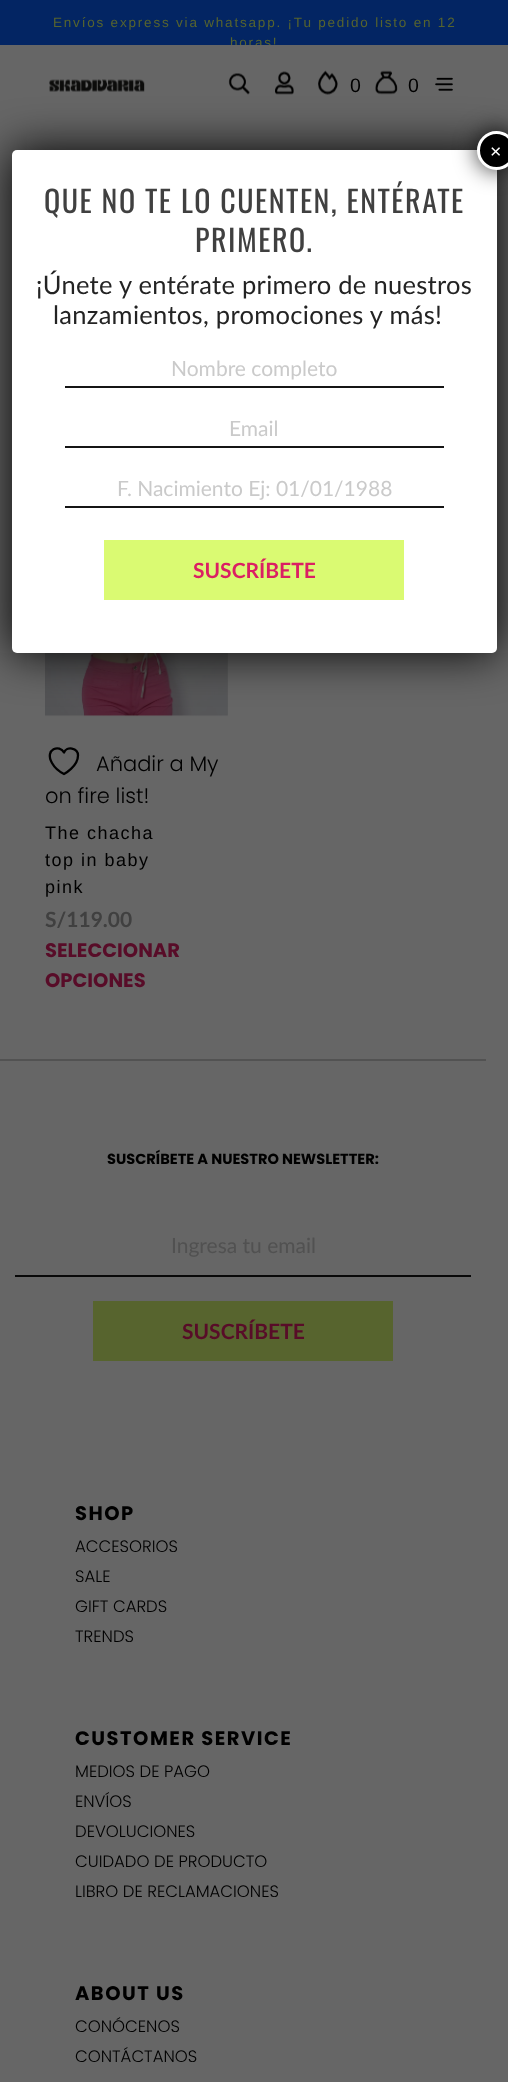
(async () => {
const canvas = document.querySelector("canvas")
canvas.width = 508
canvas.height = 2082
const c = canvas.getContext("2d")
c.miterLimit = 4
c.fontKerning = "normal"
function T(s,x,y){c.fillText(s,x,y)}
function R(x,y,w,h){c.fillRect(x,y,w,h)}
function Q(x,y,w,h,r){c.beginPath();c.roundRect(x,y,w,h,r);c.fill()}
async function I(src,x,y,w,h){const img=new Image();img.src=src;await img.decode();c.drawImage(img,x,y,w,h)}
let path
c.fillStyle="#666"
R(0,0,508,2082)
c.fillStyle="#032563"
R(0,0,508,45)
c.letterSpacing="1.8px"
c.font="13.5px Liberation Sans"
c.fillStyle="#57642e"
T("Envíos express via whatsapp. ¡Tu pedido listo en 12",53,27)
c.save()
c.beginPath()
c.rect(0,0,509,45)
c.clip()
T("horas!",230,47)
c.restore()
await I("1.png",49,79,96,13)
await I("2.png",228,73,22,22)
await I("3.png",275,71,19,24)
await I("4.png",318,70,20,25)
c.letterSpacing="0px"
c.font="19.5px Liberation Sans"
c.fillStyle="#000"
T("0",350,92)
await I("5.png",375,70,23,25)
T("0",408,92)
await I("6.png",435,77,18,14)
await I("7.png",45,653,183,64)
path = new Path2D("M78 755.5c0-8-11.5-9.5-14-3c-4-8.5-20-3.5-12 10.5c2.5 4.5 7 8.5 12 11c0 0 14-7.5 14-18.5z")
c.strokeStyle="#000"
c.lineWidth=2.3
c.lineCap="round"
c.lineJoin="round"
c.stroke(path)
c.font="300 21px Poppins"
T("Añadir a My",96,771)
T("on fire list!",45,803)
c.letterSpacing="1.5px"
c.font="18px Liberation Sans"
T("The chacha",45,839)
T("top in baby",45,866)
T("pink",45,893)
c.letterSpacing="0px"
c.font="bold 21px Lato"
c.fillStyle="#404040"
T("S/119.00",45,927)
c.font="bold 19.5px Poppins"
c.fillStyle="#580c28"
T("SELECCIONAR",45,957)
T("OPCIONES",45,987)
c.fillStyle="#525252"
R(0,1059,486,2)
c.font="bold 14.6px Poppins"
c.fillStyle="#000"
T("SUSCRÍBETE A NUESTRO NEWSLETTER:",107,1164)
c.fillStyle="#080808"
R(15,1275,456,2)
c.font="21px Lato"
c.fillStyle="#515151"
T("Ingresa tu email",171,1253)
c.fillStyle="#57642e"
R(93,1301,300,60)
c.font="bold 21px Lato"
c.fillStyle="#580c28"
T("SUSCRÍBETE",182,1339)
c.letterSpacing="1.5px"
c.font="bold 19.5px Poppins"
c.fillStyle="#000"
T("SHOP",75,1520)
c.letterSpacing="0px"
c.font="300 16.5px Poppins"
T("ACCESORIOS",75,1552)
T("SALE",75,1582)
T("GIFT CARDS",75,1612)
T("TRENDS",75,1642)
c.letterSpacing="1.5px"
c.font="bold 19.5px Poppins"
T("CUSTOMER SERVICE",75,1745)
c.letterSpacing="0px"
c.font="300 16.5px Poppins"
T("MEDIOS DE PAGO",75,1777)
T("ENVÍOS",75,1807)
T("DEVOLUCIONES",75,1837)
T("CUIDADO DE PRODUCTO",75,1867)
T("LIBRO DE RECLAMACIONES",75,1897)
c.letterSpacing="1.5px"
c.font="bold 19.5px Poppins"
T("ABOUT US",75,2000)
c.letterSpacing="0px"
c.font="300 16.5px Poppins"
T("CONÓCENOS",75,2032)
T("CONTÁCTANOS",75,2062)
c.fillStyle="#020202"
c.filter="blur(22.5px)"
c.beginPath()
c.roundRect(12,150,485,503,5)
c.fill()
c.filter="none"
c.fillStyle="#fff"
Q(12,150,485,503,5)
c.fillStyle="#020202bf"
c.filter="blur(11px)"
c.beginPath()
c.roundRect(476,129,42,42,21)
c.fill()
c.filter="none"
c.fillStyle="#000"
c.beginPath()
c.arc(496.5,150.5,18,0,7)
c.fill()
c.strokeStyle="#fff"
c.lineWidth=3
c.stroke()
c.font="19.5px Liberation Sans"
c.fillStyle="#fff"
T("×",490,158)
c.letterSpacing="1.5px"
c.font="30px Oswald"
c.fillStyle="#404040"
T("QUE NO TE LO CUENTEN, ENTÉRATE",44,213)
T("PRIMERO.",195,252)
c.letterSpacing="0.3px"
c.font="25.5px Lato"
c.fillStyle="#232323"
T("¡Únete y entérate primero de nuestros",36,294)
T("lanzamientos, promociones y más!",53,324)
c.fillStyle="#151515"
R(65,386,379,2)
c.letterSpacing="0px"
c.font="21px Lato"
c.fillStyle="#cacaca"
T("Nombre completo",171,376)
c.fillStyle="#151515"
R(65,446,379,2)
c.fillStyle="#cacaca"
T("Email",229,436)
c.fillStyle="#151515"
R(65,506,379,2)
c.fillStyle="#cacaca"
T("F. Nacimiento Ej: 01/01/1988",117,496)
c.fillStyle="#dafa72"
R(104,540,300,60)
c.font="bold 21px Lato"
c.fillStyle="#db1f63"
T("SUSCRÍBETE",193,578)
})()
